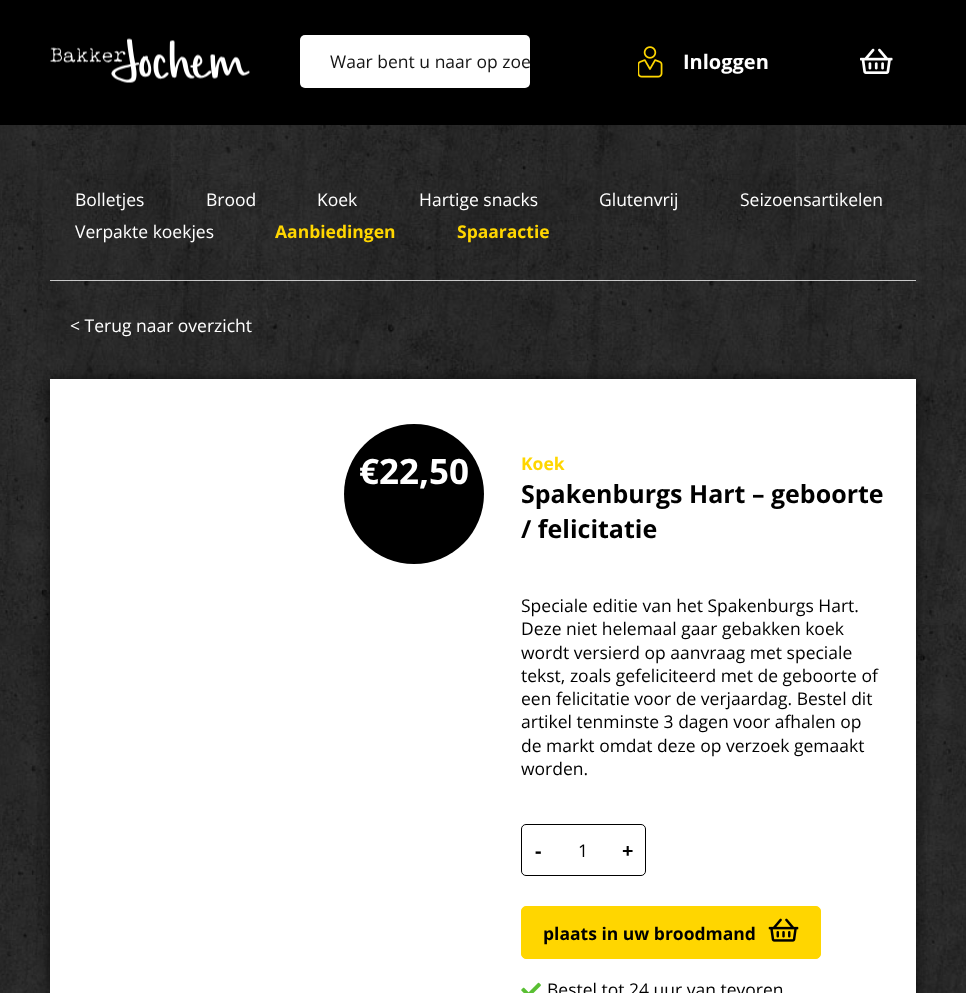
(async () => {
const canvas = document.querySelector("canvas")
canvas.width = 966
canvas.height = 993
const c = canvas.getContext("2d")
c.miterLimit = 4
c.fontKerning = "normal"
function T(s,x,y){c.fillText(s,x,y)}
function R(x,y,w,h){c.fillRect(x,y,w,h)}
function Q(x,y,w,h,r){c.beginPath();c.roundRect(x,y,w,h,r);c.fill()}
async function I(src,x,y,w,h){const img=new Image();img.src=src;await img.decode();c.drawImage(img,x,y,w,h)}
c.fillStyle="#fff"
R(0,0,966,993)
await I("1.png",0,125,966,868)
c.fillStyle="#000"
R(0,0,966,125)
await I("2.png",50,38,200,45)
c.fillStyle="#fff"
Q(300,35,230,53,5)
c.font="17.5px Open Sans"
c.fillStyle="#151515"
T("Waar bent u naar op zoe",330,68)
await I("3.png",638,46,25,32)
c.font="bold 20px Open Sans"
c.fillStyle="#fff"
T("Inloggen",683,69)
await I("4.png",860,48,33,26)
c.font="17.5px Open Sans"
T("Bolletjes",75,206)
T("Brood",206,206)
T("Koek",317,206)
T("Hartige snacks",419,206)
T("Glutenvrij",599,206)
T("Seizoensartikelen",740,206)
T("Verpakte koekjes",75,238)
c.font="bold 17.5px Open Sans"
c.fillStyle="#ffd600"
T("Aanbiedingen",275,238)
T("Spaaractie",457,238)
c.fillStyle="#ffffffbf"
R(50,280,866,1)
c.font="17.5px Open Sans"
c.fillStyle="#fff"
T("< Terug naar overzicht",70,332)
c.fillStyle="#000000a8"
c.filter="blur(6px)"
c.beginPath()
c.rect(50,379,866,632)
c.fill()
c.filter="none"
c.fillStyle="#fff"
R(50,379,866,614)
c.fillStyle="#000"
c.beginPath()
c.arc(414,494,70,0,7)
c.fill()
c.font="bold 35px Open Sans"
c.fillStyle="#fff"
T("€22,50",359,484)
c.font="bold 17.5px Open Sans"
c.fillStyle="#ffd600"
T("Koek",521,470)
c.font="bold 25px Open Sans"
c.fillStyle="#000"
T("Spakenburgs Hart – geboorte",521,503)
T("/ felicitatie",521,538)
c.font="17.5px Open Sans"
T("Speciale editie van het Spakenburgs Hart.",521,612)
T("Deze niet helemaal gaar gebakken koek",521,635)
T("wordt versierd op aanvraag met speciale",521,659)
T("tekst, zoals gefeliciteerd met de geboorte of",521,682)
T("een felicitatie voor de verjaardag. Bestel dit",521,705)
T("artikel tenminste 3 dagen voor afhalen op",521,728)
T("de markt omdat deze op verzoek gemaakt",521,752)
T("worden.",521,775)
c.beginPath()
c.roundRect(521.5,824.5,124,51,4.5)
c.strokeStyle="#000"
c.stroke()
c.font="bold 20px Open Sans"
T("-",535,858)
c.font="17.5px Open Sans"
T("1",578,857)
c.font="bold 20px Open Sans"
T("+",622,858)
c.fillStyle="#ffd600"
c.beginPath()
c.roundRect(521.5,906.5,299,52,4.5)
c.fill()
c.strokeStyle="#ffd600"
c.stroke()
c.font="bold 17.5px Open Sans"
c.fillStyle="#000"
T("plaats in uw broodmand",543,940)
await I("5.png",768,918,31,24)
await I("6.png",521,982,20,11)
c.font="17.5px Open Sans"
T("Bestel tot 24 uur van tevoren",547,996)
})()
